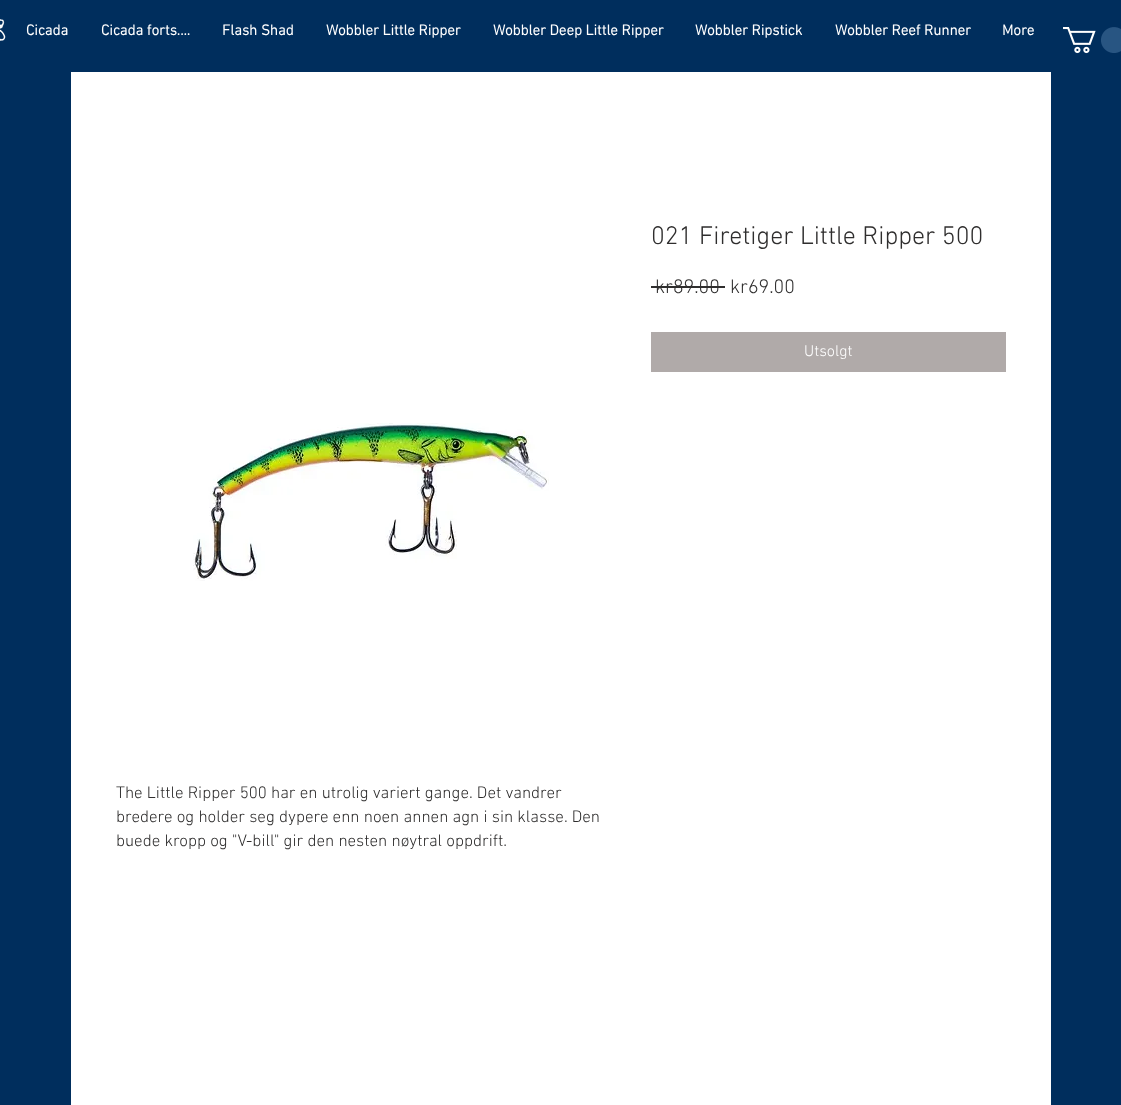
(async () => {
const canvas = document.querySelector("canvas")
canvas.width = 1121
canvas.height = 1105
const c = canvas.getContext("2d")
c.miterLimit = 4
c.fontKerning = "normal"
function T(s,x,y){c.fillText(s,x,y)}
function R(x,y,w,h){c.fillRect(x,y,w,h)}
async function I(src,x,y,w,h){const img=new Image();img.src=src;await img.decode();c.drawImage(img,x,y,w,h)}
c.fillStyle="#002e5d"
R(0,0,1121,1105)
await I("1.png",0,19,6,22)
c.font="bold 15px 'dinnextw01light'"
c.fillStyle="#fff"
T("Cicada",26,35)
T("Cicada forts....",101,35)
T("Flash Shad",222,35)
T("Wobbler Little Ripper",326,35)
T("Wobbler Deep Little Ripper",493,35)
T("Wobbler Ripstick",695,35)
T("Wobbler Reef Runner",835,35)
T("More",1002,35)
await I("2.png",1063,27,58,27)
R(71,72,980,1033)
c.font="300 26px 'dinnextw01light'"
c.fillStyle="#2f2e2e"
T("021 Firetiger Little Ripper 500",651,244)
c.font="300 20px 'dinnextw01light'"
T("kr89.00",655,293)
R(651,286,74,2)
T("kr69.00",730,293)
c.fillStyle="#b0aaa9"
R(651,332,355,40)
c.font="300 16px 'dinnextw01light'"
c.fillStyle="#fff"
T("Utsolgt",804,356)
await I("3.png",193,423,356,158)
c.font="300 17px 'dinnextw01light'"
c.fillStyle="#2f2e2e"
T("The Little Ripper 500 har en utrolig variert gange. Det vandrer",116,798)
T("bredere og holder seg dypere enn noen annen agn i sin klasse. Den",116,822)
T("buede kropp og \"V-bill\" gir den nesten nøytral oppdrift.",116,846)
})()
